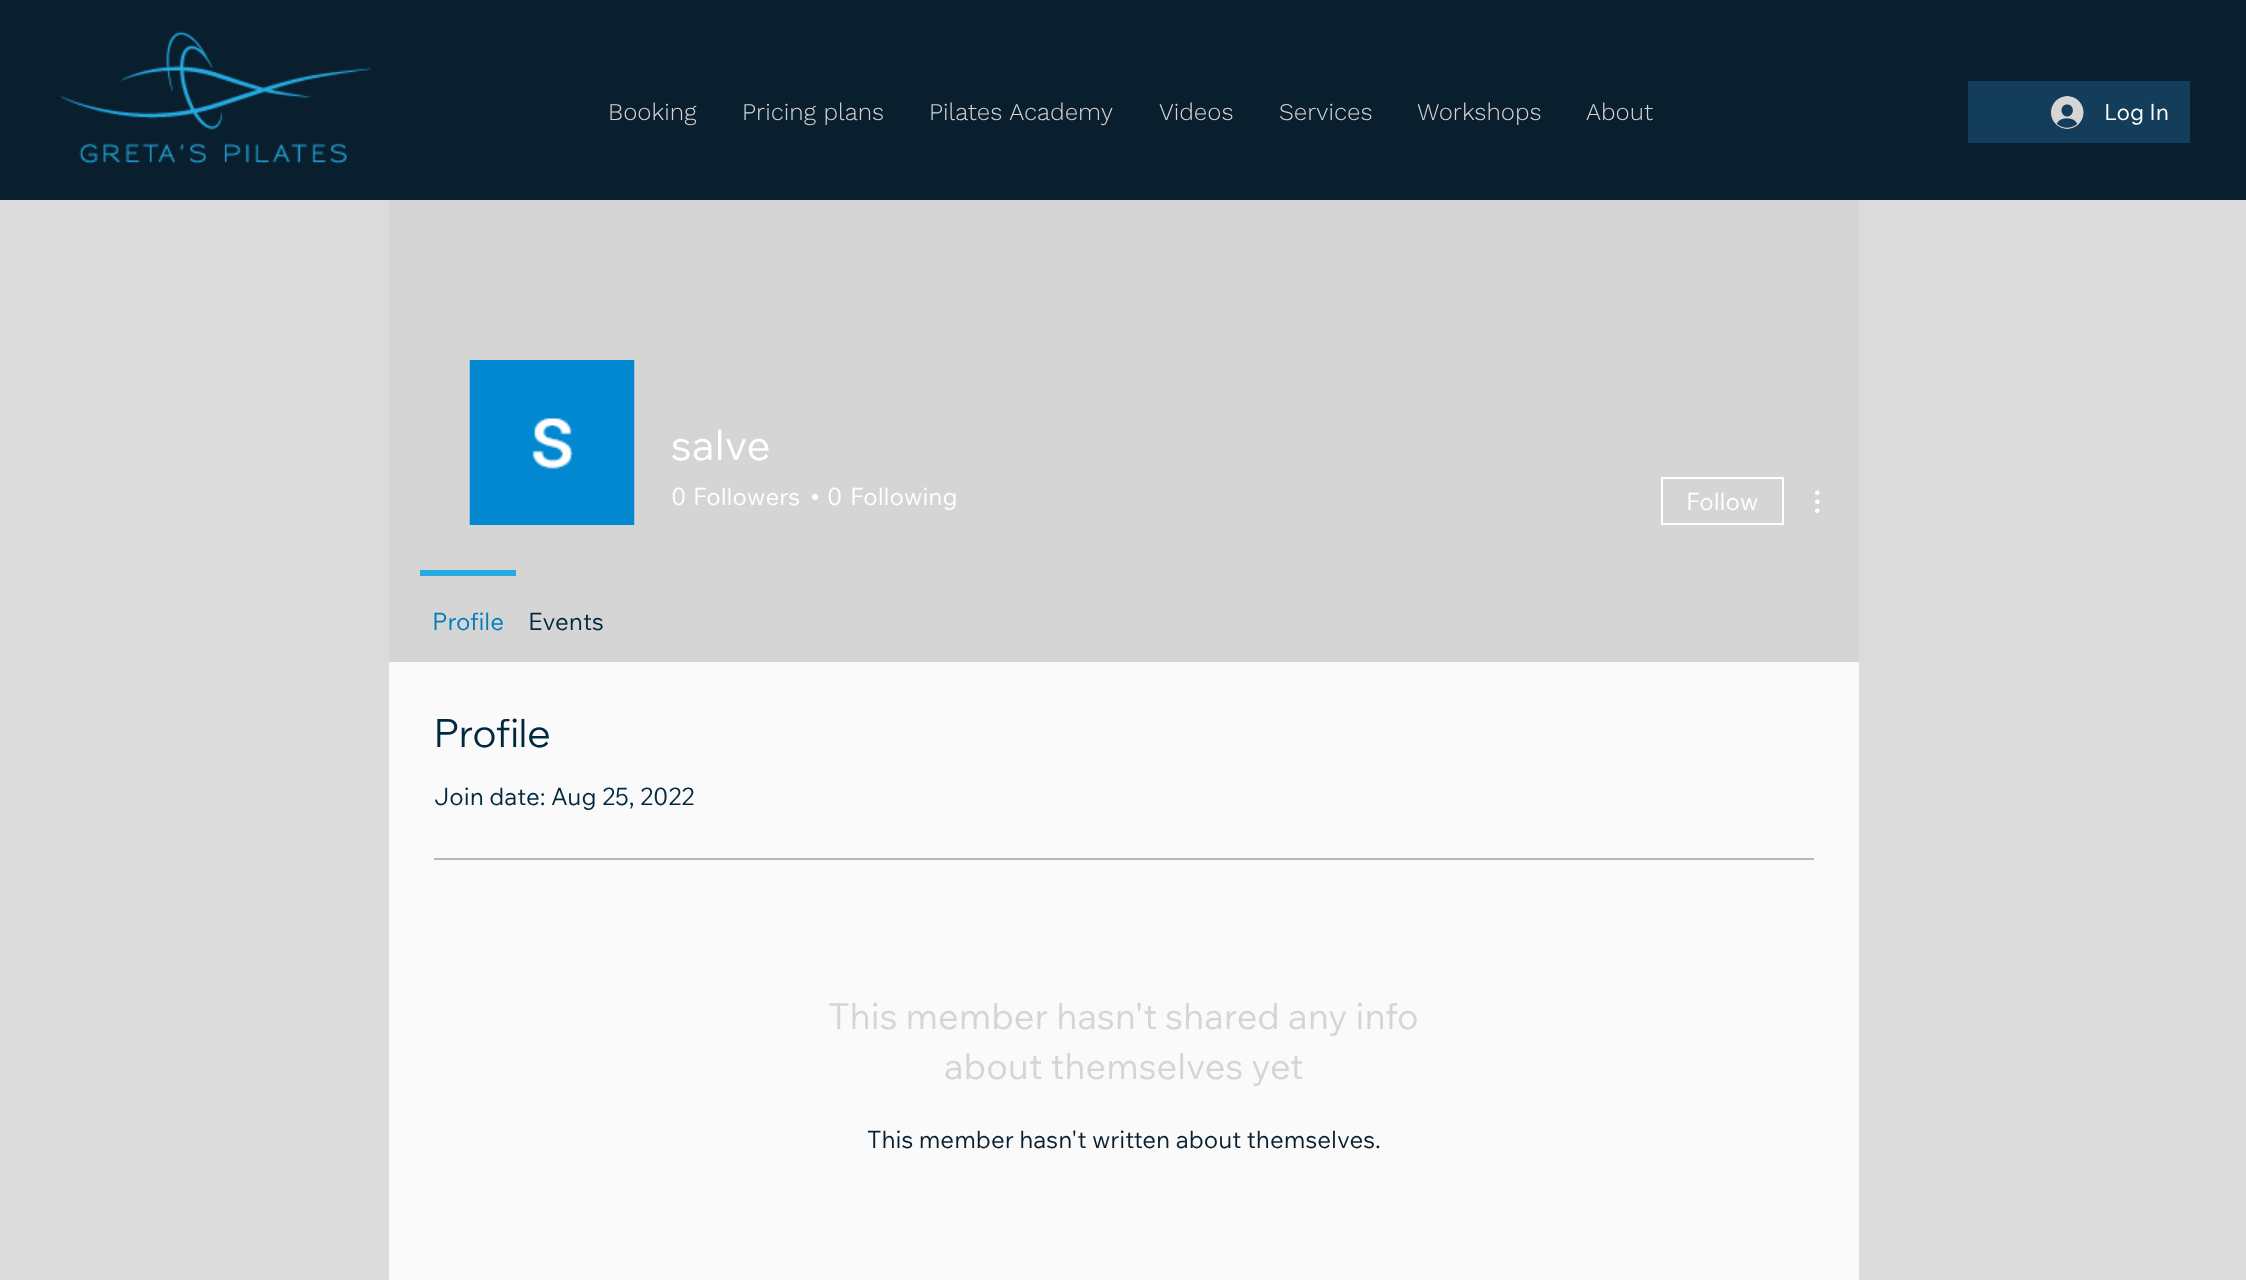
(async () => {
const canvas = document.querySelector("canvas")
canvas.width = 2246
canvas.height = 1280
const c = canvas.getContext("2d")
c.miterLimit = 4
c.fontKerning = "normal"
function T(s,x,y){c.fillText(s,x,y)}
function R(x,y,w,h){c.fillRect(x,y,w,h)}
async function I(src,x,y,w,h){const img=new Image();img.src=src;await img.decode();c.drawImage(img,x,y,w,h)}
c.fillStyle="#dbdbdb"
R(0,0,2246,1280)
c.fillStyle="#0a1f2e"
R(0,0,2246,200)
await I("1.png",60,31,311,133)
c.font="300 24px Work Sans"
c.fillStyle="#d5d5d5"
T("Booking",608,120)
T("Pricing plans",742,120)
T("Pilates Academy",929,120)
T("Videos",1159,120)
T("Services",1279,120)
T("Workshops",1417,120)
T("About",1586,120)
c.fillStyle="#143d5c"
R(1968,81,222,62)
await I("2.png",2051,96,33,33)
c.font="22.5px Wix Madefor Text"
c.fillStyle="#fff"
T("Log In",2104,120)
c.fillStyle="#d5d5d5"
R(389,200,1470,462)
c.fillStyle="#d8d8d8"
R(634,360,1,165)
await I("3.png",469,360,166,165)
c.font="42px Wix Madefor Text"
c.fillStyle="#fff"
T("salve",671,460)
c.font="24px Wix Madefor Text"
T("0",671,505)
T("Followers",693,505)
c.beginPath()
c.arc(815,497,3,0,7)
c.fill()
T("0",827,505)
T("Following",850,505)
c.strokeStyle="#fff"
c.lineWidth=2
c.strokeRect(1662,478,121,46)
T("Follow",1686,510)
await I("4.png",1815,490,5,23)
c.fillStyle="#27aae1"
R(420,570,96,6)
c.fillStyle="#007cba"
T("Profile",432,630)
c.fillStyle="#00293e"
T("Events",528,630)
c.fillStyle="#fafafa"
R(389,662,1470,618)
c.font="39px Wix Madefor Display"
c.fillStyle="#00293e"
T("Profile",434,747)
c.font="24px Wix Madefor Text"
T("Join date: Aug 25, 2022",434,805)
c.fillStyle="#b2b8bd"
R(434,858,1380,2)
c.font="36px Wix Madefor Text"
c.fillStyle="#d5d5d5"
T("This member hasn't shared any info",828,1029)
T("about themselves yet",944,1079)
c.font="24px Wix Madefor Text"
c.fillStyle="#0a1f2e"
T("This member hasn't written about themselves.",867,1148)
})()
